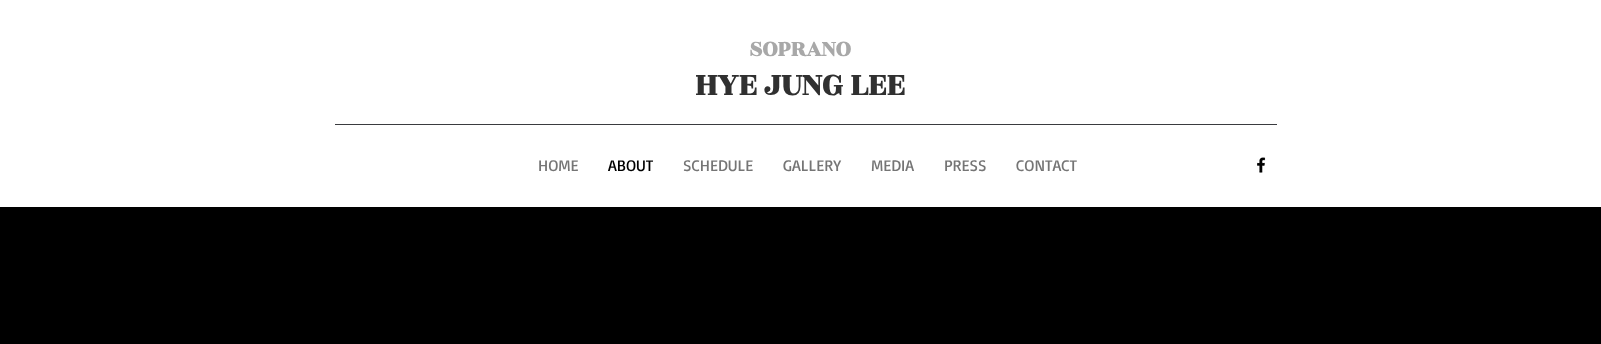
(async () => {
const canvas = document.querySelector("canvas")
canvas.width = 1601
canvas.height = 344
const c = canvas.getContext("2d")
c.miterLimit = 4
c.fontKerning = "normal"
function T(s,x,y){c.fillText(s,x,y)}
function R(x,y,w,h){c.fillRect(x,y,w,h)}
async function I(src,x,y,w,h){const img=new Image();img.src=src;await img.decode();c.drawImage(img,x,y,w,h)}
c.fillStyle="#fff"
R(0,0,1601,344)
c.font="bold 24px Rozha One"
c.fillStyle="#a8a8a8"
T("SOPRANO",749,56)
c.font="bold 34px Rozha One"
c.fillStyle="#303030"
T("HYE JUNG LEE",695,95)
c.fillStyle="#3a3b3f"
R(335,124,942,1)
c.font="16px Basic"
c.fillStyle="#757575"
T("HOME",538,171)
c.fillStyle="#000"
T("ABOUT",608,171)
c.fillStyle="#757575"
T("SCHEDULE",683,171)
T("GALLERY",783,171)
T("MEDIA",871,171)
T("PRESS",944,171)
T("CONTACT",1016,171)
await I("1.png",1257,157,9,16)
c.fillStyle="#000"
R(0,207,1601,137)
})()
